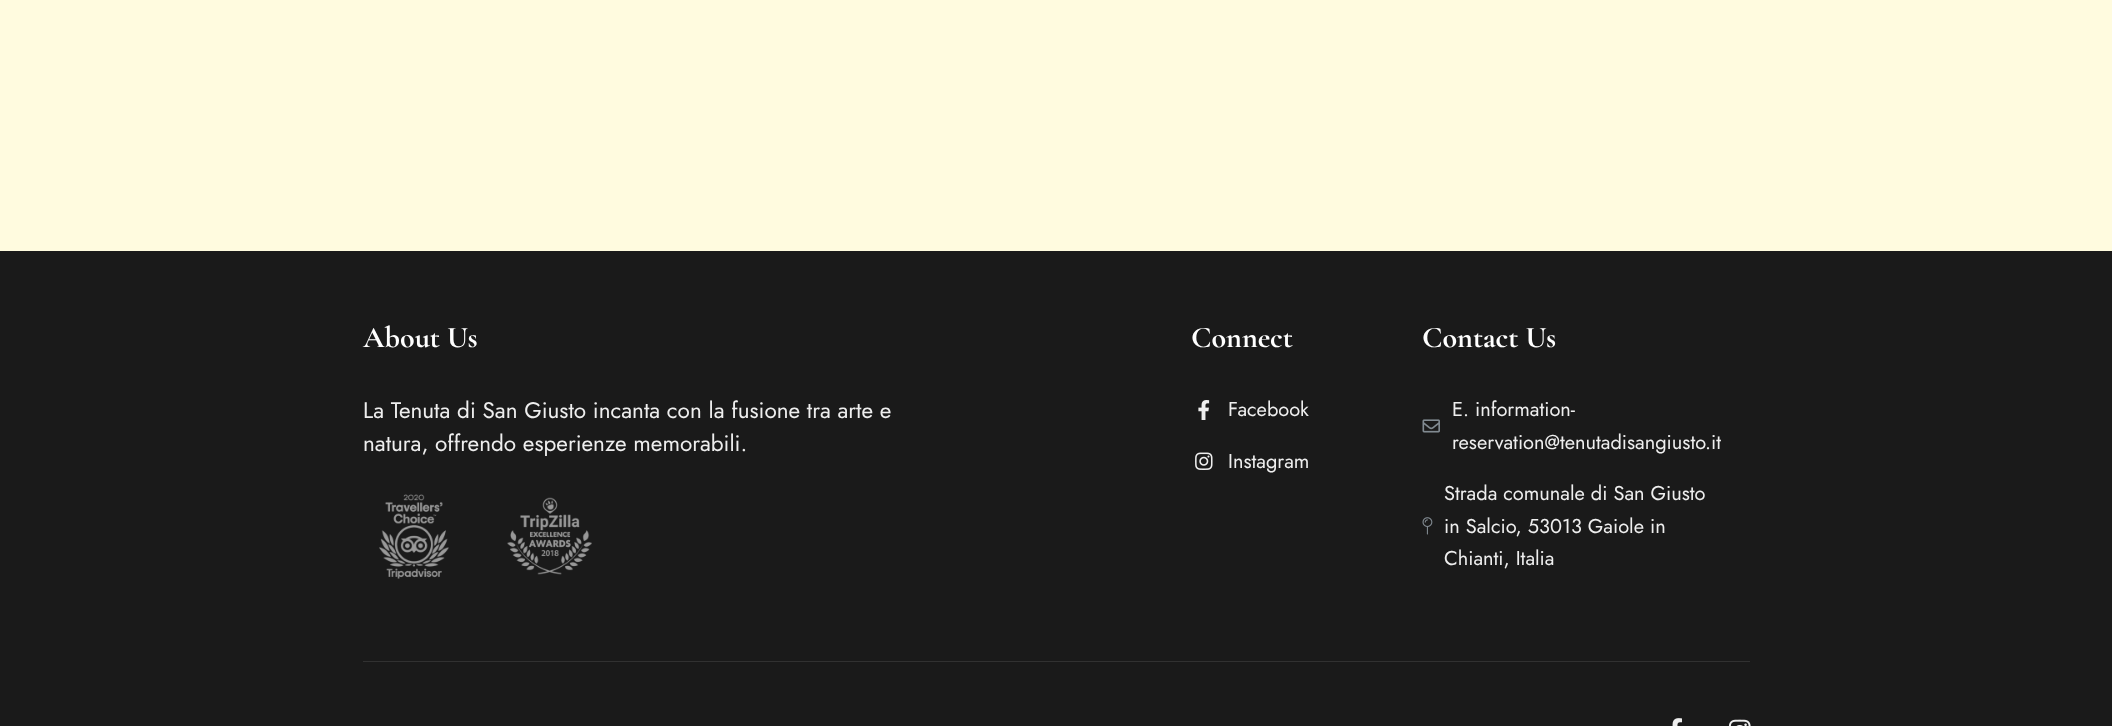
(async () => {
const canvas = document.querySelector("canvas")
canvas.width = 2112
canvas.height = 726
const c = canvas.getContext("2d")
c.miterLimit = 4
c.fontKerning = "normal"
function T(s,x,y){c.fillText(s,x,y)}
function R(x,y,w,h){c.fillRect(x,y,w,h)}
async function I(src,x,y,w,h){const img=new Image();img.src=src;await img.decode();c.drawImage(img,x,y,w,h)}
c.fillStyle="#fffbdf"
R(0,0,2112,726)
c.fillStyle="#1a1a1a"
R(0,251,2112,475)
c.font="bold 30px Cormorant Garamond"
c.fillStyle="#fff"
T("About Us",363,347)
c.font="22.5px Jost"
c.fillStyle="#eee"
T("La Tenuta di San Giusto incanta con la fusione tra arte e",363,418)
T("natura, offrendo esperienze memorabili.",363,451)
await I("1.png",379,494,70,85)
await I("2.png",507,497,85,78)
c.font="bold 30px Cormorant Garamond"
c.fillStyle="#fff"
T("Connect",1191,347)
await I("3.png",1198,400,12,20)
c.font="20px Jost"
c.fillStyle="#eee"
T("Facebook",1228,416)
await I("4.png",1195,452,18,18)
T("Instagram",1228,468)
c.font="bold 30px Cormorant Garamond"
c.fillStyle="#fff"
T("Contact Us",1422,347)
await I("5.png",1422,419,18,14)
c.font="20px Jost"
c.fillStyle="#eee"
T("E. information-",1452,416)
T("reservation@tenutadisangiusto.it",1452,449)
await I("6.png",1422,517,11,18)
T("Strada comunale di San Giusto",1444,500)
T("in Salcio, 53013 Gaiole in",1444,533)
T("Chianti, Italia",1444,565)
c.fillStyle="#313131"
R(363,661,1387,1)
await I("7.png",1672,718,10,8)
await I("8.png",1728,719,23,7)
})()
